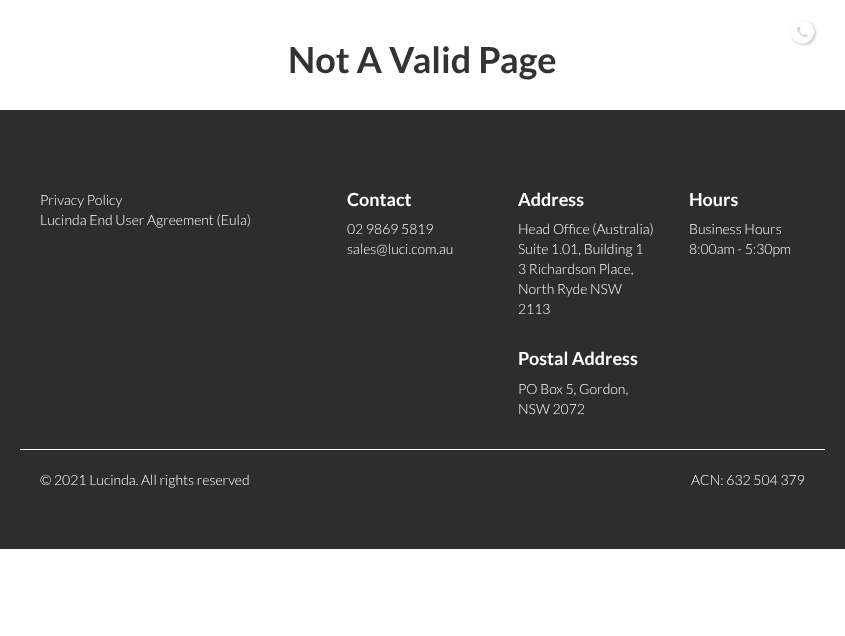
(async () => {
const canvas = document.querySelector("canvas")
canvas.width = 845
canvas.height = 636
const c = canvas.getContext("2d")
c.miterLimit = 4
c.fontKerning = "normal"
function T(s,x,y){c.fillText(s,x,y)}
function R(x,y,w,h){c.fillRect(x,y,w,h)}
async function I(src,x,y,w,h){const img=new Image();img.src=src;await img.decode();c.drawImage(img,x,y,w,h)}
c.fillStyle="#fff"
R(0,0,845,636)
await I("1.png",790,20,27,26)
c.font="bold 36px Lato"
c.fillStyle="#333"
T("Not A Valid Page",288,73)
c.fillStyle="#2d2d2d"
R(0,110,845,439)
c.font="300 14px Lato"
c.fillStyle="#fff"
T("Privacy Policy",40,205)
T("Lucinda End User Agreement (Eula)",40,225)
c.font="bold 18px Lato"
T("Contact",347,206)
c.font="300 14px Lato"
T("02 9869 5819",347,234)
T("sales@luci.com.au",347,254)
c.font="bold 18px Lato"
T("Address",518,206)
c.font="300 14px Lato"
T("Head Office (Australia)",518,234)
T("Suite 1.01, Building 1",518,254)
T("3 Richardson Place,",518,274)
T("North Ryde NSW",518,294)
T("2113",518,314)
c.font="bold 18px Lato"
T("Postal Address",518,365)
c.font="300 14px Lato"
T("PO Box 5, Gordon,",518,394)
T("NSW 2072",518,414)
c.font="bold 18px Lato"
T("Hours",689,206)
c.font="300 14px Lato"
T("Business Hours",689,234)
T("8:00am - 5:30pm",689,254)
R(20,449,805,1)
T("© 2021 Lucinda. All rights reserved",40,485)
T("ACN: 632 504 379",691,485)
})()
